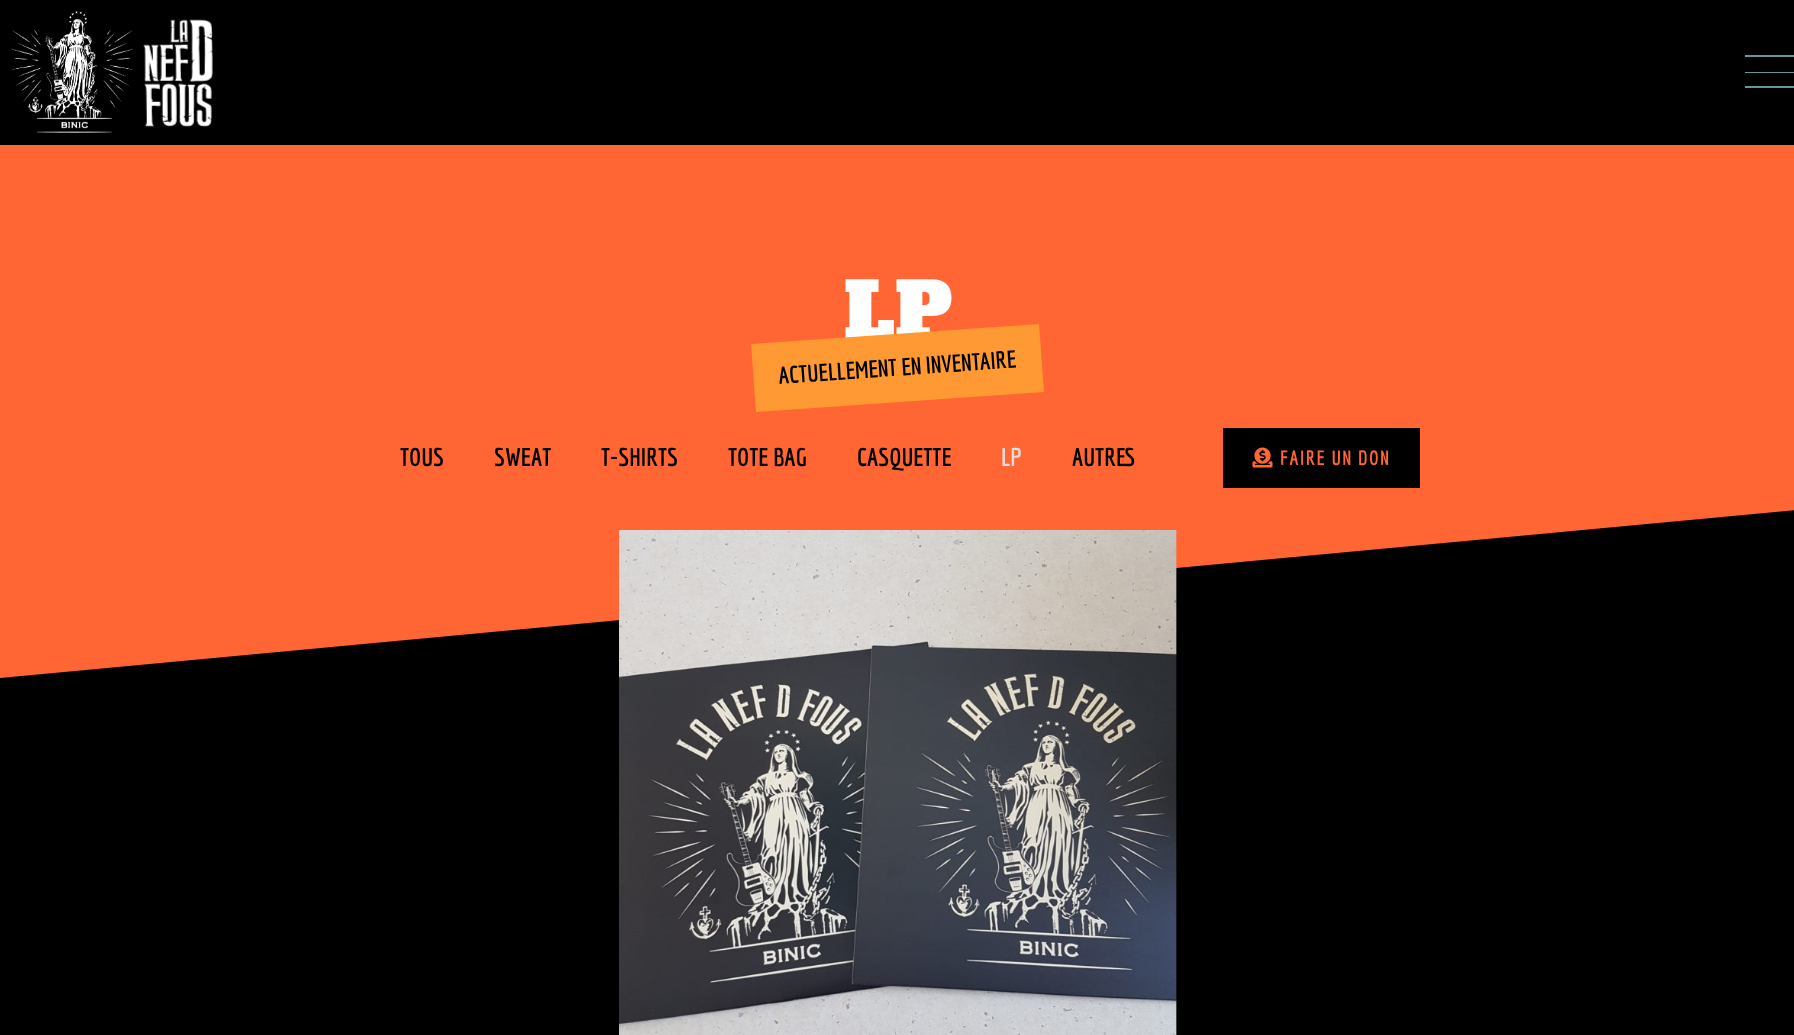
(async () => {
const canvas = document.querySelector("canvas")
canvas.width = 1794
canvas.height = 1035
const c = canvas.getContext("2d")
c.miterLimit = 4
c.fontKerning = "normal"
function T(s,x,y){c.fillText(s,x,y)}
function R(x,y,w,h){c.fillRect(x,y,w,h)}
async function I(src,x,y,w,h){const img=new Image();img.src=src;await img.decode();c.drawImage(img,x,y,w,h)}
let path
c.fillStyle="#000"
R(0,0,1794,1035)
await I("1.png",11,11,123,122)
await I("2.png",143,19,70,108)
c.fillStyle="#649898"
R(1745,86,49,2)
R(1745,72,49,1)
R(1745,55,49,2)
c.fillStyle="#f63"
R(0,145,1794,354)
c.font="78px Alfa Slab One"
c.fillStyle="#fff"
T("LP",844,340)
c.fillStyle="#f93"
path = new Path2D("M751 344l288-20l5 68l-288 20z")
c.fill(path)
c.font="bold 23.75px Economica"
c.fillStyle="#000"
c.save()
c.translate(779,384)
c.rotate(-4 * Math.PI / 180)
c.fillText("ACTUELLEMENT EN INVENTAIRE",0,0)
c.restore()
c.font="bold 25px Economica"
T("TOUS",400,466)
T("SWEAT",494,466)
T("T-SHIRTS",601,466)
T("TOTE BAG",728,466)
T("CASQUETTE",857,466)
c.fillStyle="#dfdfdf"
T("LP",1001,466)
c.fillStyle="#000"
T("AUTRES",1072,466)
R(1223,428,197,60)
await I("3.png",1252,447,21,21)
c.letterSpacing="1.5px"
c.font="bold 20px Economica"
c.fillStyle="#f63"
T("FAIRE UN DON",1280,465)
path = new Path2D("M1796 510v-11h-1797v179z")
c.fill(path)
await I("4.png",619,530,558,505)
})()
